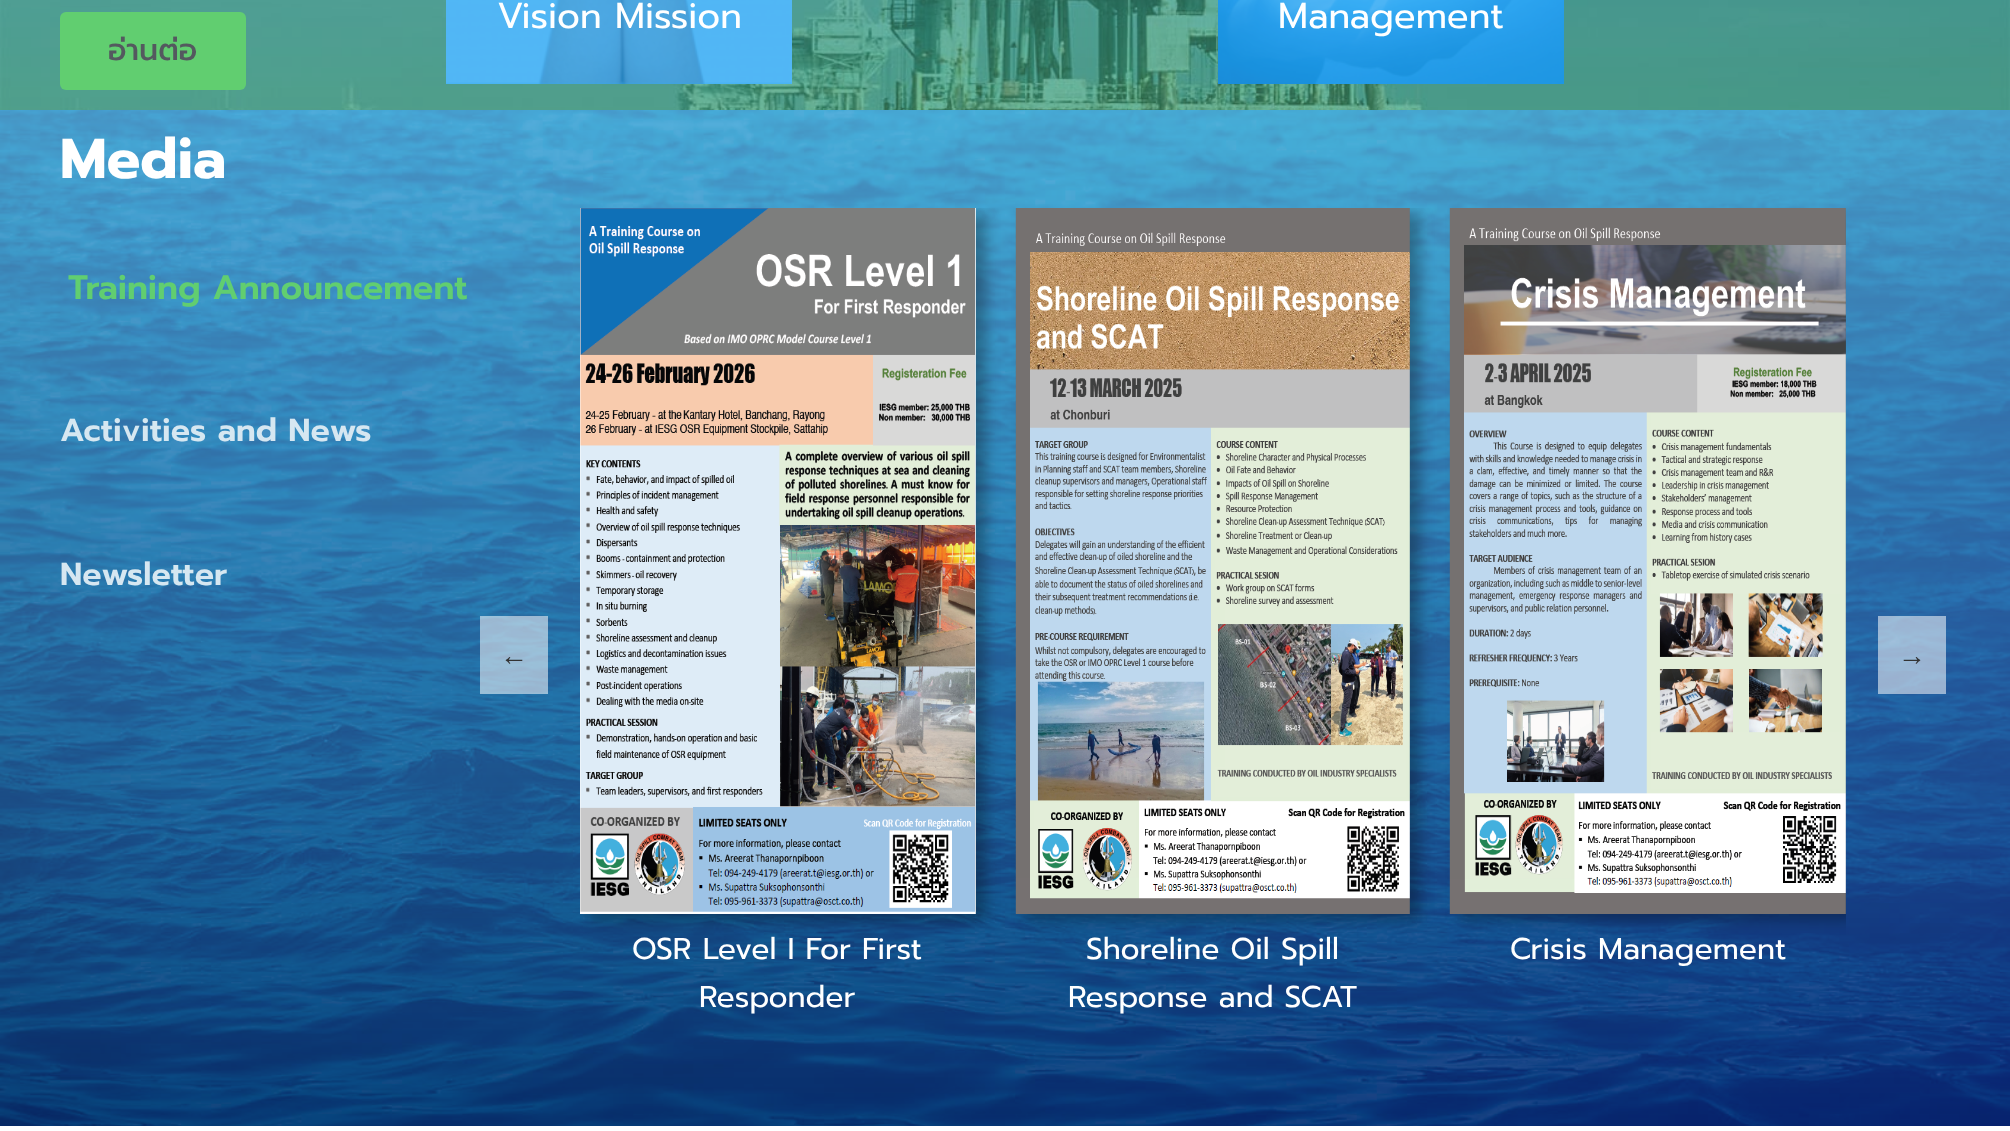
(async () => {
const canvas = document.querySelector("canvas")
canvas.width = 2010
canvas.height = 1131
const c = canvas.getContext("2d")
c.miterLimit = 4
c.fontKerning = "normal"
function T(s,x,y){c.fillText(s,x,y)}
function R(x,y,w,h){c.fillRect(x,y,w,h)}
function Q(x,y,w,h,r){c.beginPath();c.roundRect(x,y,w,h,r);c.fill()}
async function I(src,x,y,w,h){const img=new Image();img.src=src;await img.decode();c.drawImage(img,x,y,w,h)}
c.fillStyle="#fff"
R(0,0,2010,1131)
await I("1.png",0,0,2010,110)
await I("2.png",446,0,346,84)
c.font="36px Prompt"
T("Vision Mission",497,28)
await I("3.png",1218,0,346,84)
T("Management",1278,28)
c.fillStyle="#61ce70"
Q(60,12,186,78,6)
c.font="500 30px Prompt"
c.fillStyle="#54595f"
T("อ่านต่อ",108,60)
await I("4.png",0,110,2010,1016)
c.font="bold 56px Prompt"
c.fillStyle="#fff"
T("Media",60,178)
c.font="600 34px Prompt"
c.fillStyle="#61ce70"
T("Training Announcement",68,299)
c.font="600 32px Prompt"
c.fillStyle="#d6e7f1"
T("Activities and News",60,441)
T("Newsletter",60,585)
c.fillStyle="#ffffff8a"
R(480,616,68,78)
c.font="28px Liberation Sans"
c.fillStyle="#333"
T("←",500,665)
c.fillStyle="#ffffff8a"
R(1878,616,68,78)
c.fillStyle="#333"
T("→",1898,665)
c.save()
c.beginPath()
c.rect(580,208,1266,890)
c.clip()
c.fillStyle="#0000004d"
c.filter="blur(7px)"
c.beginPath()
c.rect(590,214,396,706)
c.fill()
c.filter="none"
c.restore()
await I("5.png",580,208,396,706)
c.font="30px Prompt"
c.fillStyle="#fff"
T("OSR Level I For First",632,959)
T("Responder",699,1007)
c.save()
c.beginPath()
c.rect(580,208,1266,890)
c.clip()
c.fillStyle="#0000004d"
c.filter="blur(7px)"
c.beginPath()
c.rect(1026,214,394,706)
c.fill()
c.filter="none"
c.restore()
await I("6.png",1015,208,395,706)
T("Shoreline Oil Spill",1086,959)
T("Response and SCAT",1068,1007)
c.save()
c.beginPath()
c.rect(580,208,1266,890)
c.clip()
c.fillStyle="#0000004d"
c.filter="blur(7px)"
c.beginPath()
c.rect(1460,214,396,706)
c.fill()
c.filter="none"
c.restore()
await I("7.png",1449,208,397,706)
T("Crisis Management",1510,959)
})()
